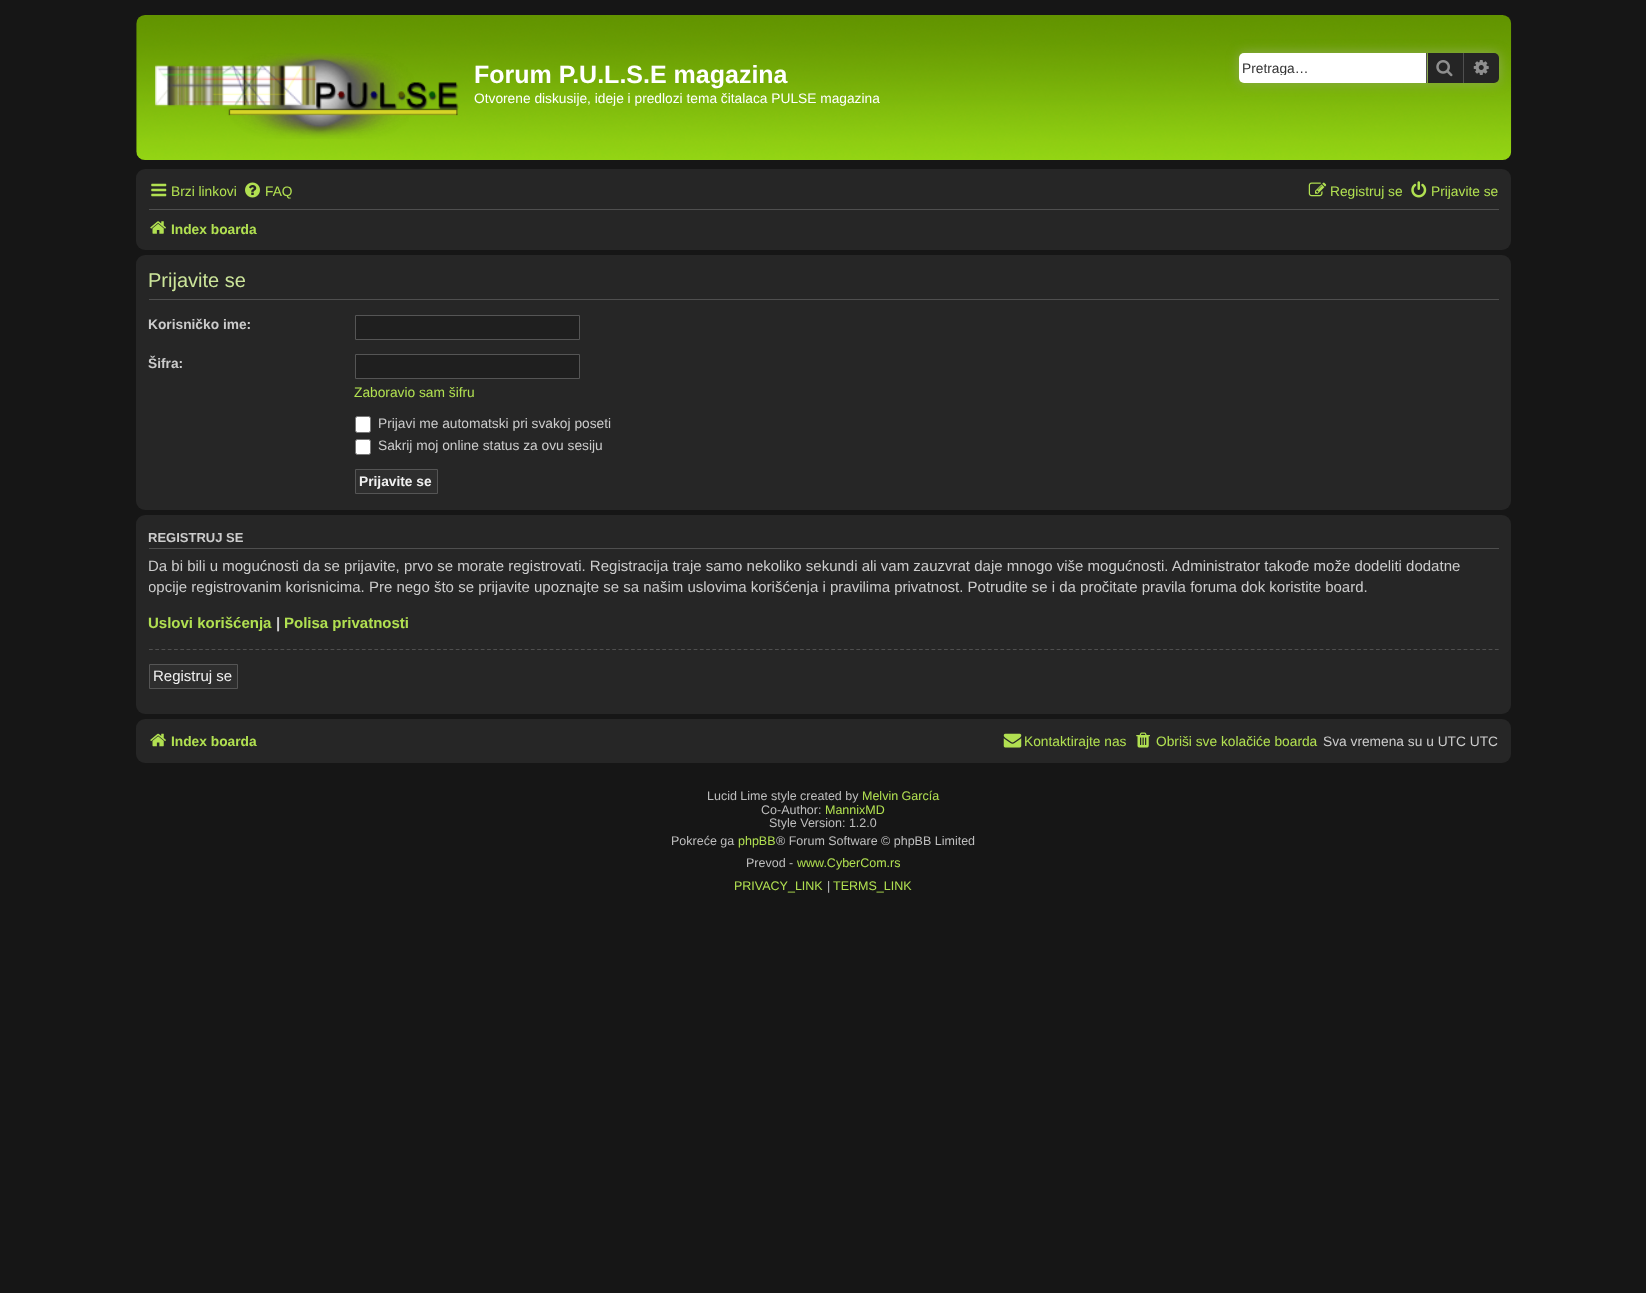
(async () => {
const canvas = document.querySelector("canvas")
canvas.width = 1646
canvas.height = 1293
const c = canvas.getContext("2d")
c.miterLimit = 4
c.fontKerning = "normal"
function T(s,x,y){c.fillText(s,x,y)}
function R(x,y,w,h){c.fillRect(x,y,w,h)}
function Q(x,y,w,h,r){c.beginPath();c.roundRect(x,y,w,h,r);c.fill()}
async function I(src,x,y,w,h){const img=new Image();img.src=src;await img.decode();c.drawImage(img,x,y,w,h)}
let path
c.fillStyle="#161616"
R(0,0,1646,1293)
await I("1.png",136,15,1376,145)
await I("2.png",155,53,304,86)
c.font="bold 25px Liberation Sans"
c.fillStyle="#fff"
T("Forum P.U.L.S.E magazina",474,83)
c.font="13.75px Liberation Sans"
T("Otvorene diskusije, ideje i predlozi tema čitalaca PULSE magazina",474,103)
c.fillStyle="#8caa54"
c.filter="blur(6px)"
c.beginPath()
c.roundRect(1239,53,260,30,5)
c.fill()
c.filter="none"
c.fillStyle="#fff"
c.beginPath()
c.roundRect(1239,53,187,30,[5,0,0,5])
c.fill()
c.save()
c.beginPath()
c.rect(1243,60,175,15)
c.clip()
c.fillStyle="#333"
T("Pretraga…",1242,73)
c.restore()
c.fillStyle="#252525"
R(1428,53,35,30)
c.fillStyle="#4f4f4f"
R(1463,53,1,30)
R(1426,53,1,30)
await I("3.png",1436,60,17,17)
c.fillStyle="#252525"
c.beginPath()
c.roundRect(1464,53,35,30,[0,5,5,0])
c.fill()
await I("4.png",1473,60,16,15)
c.fillStyle="#262626"
Q(136,169,1375,81,9)
await I("5.png",151,183,16,14)
c.fillStyle="#b1e051"
T("Brzi linkovi",171,196)
await I("6.png",245,182,15,16)
T("FAQ",265,196)
await I("7.png",1308,182,19,15)
T("Registruj se",1330,196)
await I("8.png",1411,181,16,17)
T("Prijavite se",1431,196)
c.fillStyle="#4f4f4f"
R(149,209,1350,1)
await I("9.png",150,221,16,13)
c.font="bold 13.75px Liberation Sans"
c.fillStyle="#b1e051"
T("Index boarda",171,234)
c.fillStyle="#262626"
Q(136,255,1375,255,9)
c.fillStyle="#4f4f4f"
R(149,299,1350,1)
c.font="20px Liberation Sans"
c.fillStyle="#cce59a"
T("Prijavite se",148,287)
c.font="bold 13.75px Liberation Sans"
c.fillStyle="#ccc"
T("Korisničko ime:",148,329)
c.fillStyle="#1f1f1f"
c.beginPath()
c.rect(355.5,315.5,224,24)
c.fill()
c.strokeStyle="#555"
c.stroke()
c.fillStyle="#ccc"
T("Šifra:",148,368)
c.fillStyle="#1f1f1f"
c.beginPath()
c.rect(355.5,354.5,224,24)
c.fill()
c.stroke()
c.font="13.75px Liberation Sans"
c.fillStyle="#b1e051"
T("Zaboravio sam šifru",354,397)
c.fillStyle="#fff"
c.beginPath()
c.roundRect(355.5,416.5,15,16,2)
c.fill()
c.strokeStyle="#767676"
c.stroke()
c.fillStyle="#ccc"
T("Prijavi me automatski pri svakoj poseti",378,428)
c.fillStyle="#fff"
c.beginPath()
c.roundRect(355.5,439.5,15,15,2)
c.fill()
c.stroke()
c.fillStyle="#ccc"
T("Sakrij moj online status za ovu sesiju",378,450)
c.fillStyle="#2e2e2e"
c.beginPath()
c.rect(355.5,469.5,82,24)
c.fill()
c.strokeStyle="#555"
c.stroke()
c.font="bold 13.75px Liberation Sans"
c.fillStyle="#f0f0f0"
T("Prijavite se",359,486)
c.fillStyle="#262626"
Q(136,515,1375,199,9)
c.fillStyle="#4f4f4f"
R(149,548,1350,1)
c.font="bold 13px Liberation Sans"
c.fillStyle="#ccc"
T("REGISTRUJ SE",148,542)
c.font="15px Liberation Sans"
T("Da bi bili u mogućnosti da se prijavite, prvo se morate registrovati. Registracija traje samo nekoliko sekundi ali vam zauzvrat daje mnogo više mogućnosti. Administrator takođe može dodeliti dodatne",148,571)
c.save()
c.beginPath()
c.rect(149,521,1350,187)
c.clip()
T("opcije registrovanim korisnicima. Pre nego što se prijavite upoznajte se sa našim uslovima korišćenja i pravilima privatnost. Potrudite se i da pročitate pravila foruma dok koristite board.",148,592)
c.restore()
c.font="bold 15px Liberation Sans"
c.fillStyle="#b1e051"
T("Uslovi korišćenja",148,628)
c.fillStyle="#ccc"
T("|",276,628)
c.fillStyle="#b1e051"
T("Polisa privatnosti",284,628)
path = new Path2D("M149 649.5h1350")
c.strokeStyle="#4f4f4f"
c.lineWidth=1.2
c.setLineDash([3.75,2.51])
c.stroke(path)
c.fillStyle="#2e2e2e"
c.beginPath()
c.rect(149.5,664.5,88,24)
c.fill()
c.strokeStyle="#555"
c.lineWidth=1
c.setLineDash([])
c.stroke()
c.font="15px Liberation Sans"
c.fillStyle="#f0f0f0"
T("Registruj se",153,681)
c.fillStyle="#262626"
Q(136,719,1375,44,9)
await I("10.png",150,733,16,14)
c.font="bold 13.75px Liberation Sans"
c.fillStyle="#b1e051"
T("Index boarda",171,746)
await I("11.png",1003,733,19,15)
c.font="13.75px Liberation Sans"
T("Kontaktirajte nas",1024,746)
await I("12.png",1136,732,14,16)
T("Obriši sve kolačiće boarda",1156,746)
c.fillStyle="#ccc"
T("Sva vremena su u UTC UTC",1323,746)
c.font="12.5px Liberation Sans"
c.fillStyle="#bfbfbf"
T("Lucid Lime style created by",707,800)
c.fillStyle="#b1e051"
T("Melvin García",862,800)
c.fillStyle="#bfbfbf"
T("Co-Author:",761,814)
c.fillStyle="#b1e051"
T("MannixMD",825,814)
c.fillStyle="#bfbfbf"
T("Style Version: 1.2.0",769,827)
T("Pokreće ga",671,845)
c.fillStyle="#b1e051"
T("phpBB",738,845)
c.fillStyle="#bfbfbf"
T("® Forum Software © phpBB Limited",776,845)
T("Prevod -",746,867)
c.fillStyle="#b1e051"
T("www.CyberCom.rs",797,867)
T("PRIVACY_LINK",734,890)
c.fillStyle="#bfbfbf"
T("|",827,890)
c.fillStyle="#b1e051"
T("TERMS_LINK",833,890)
})()
